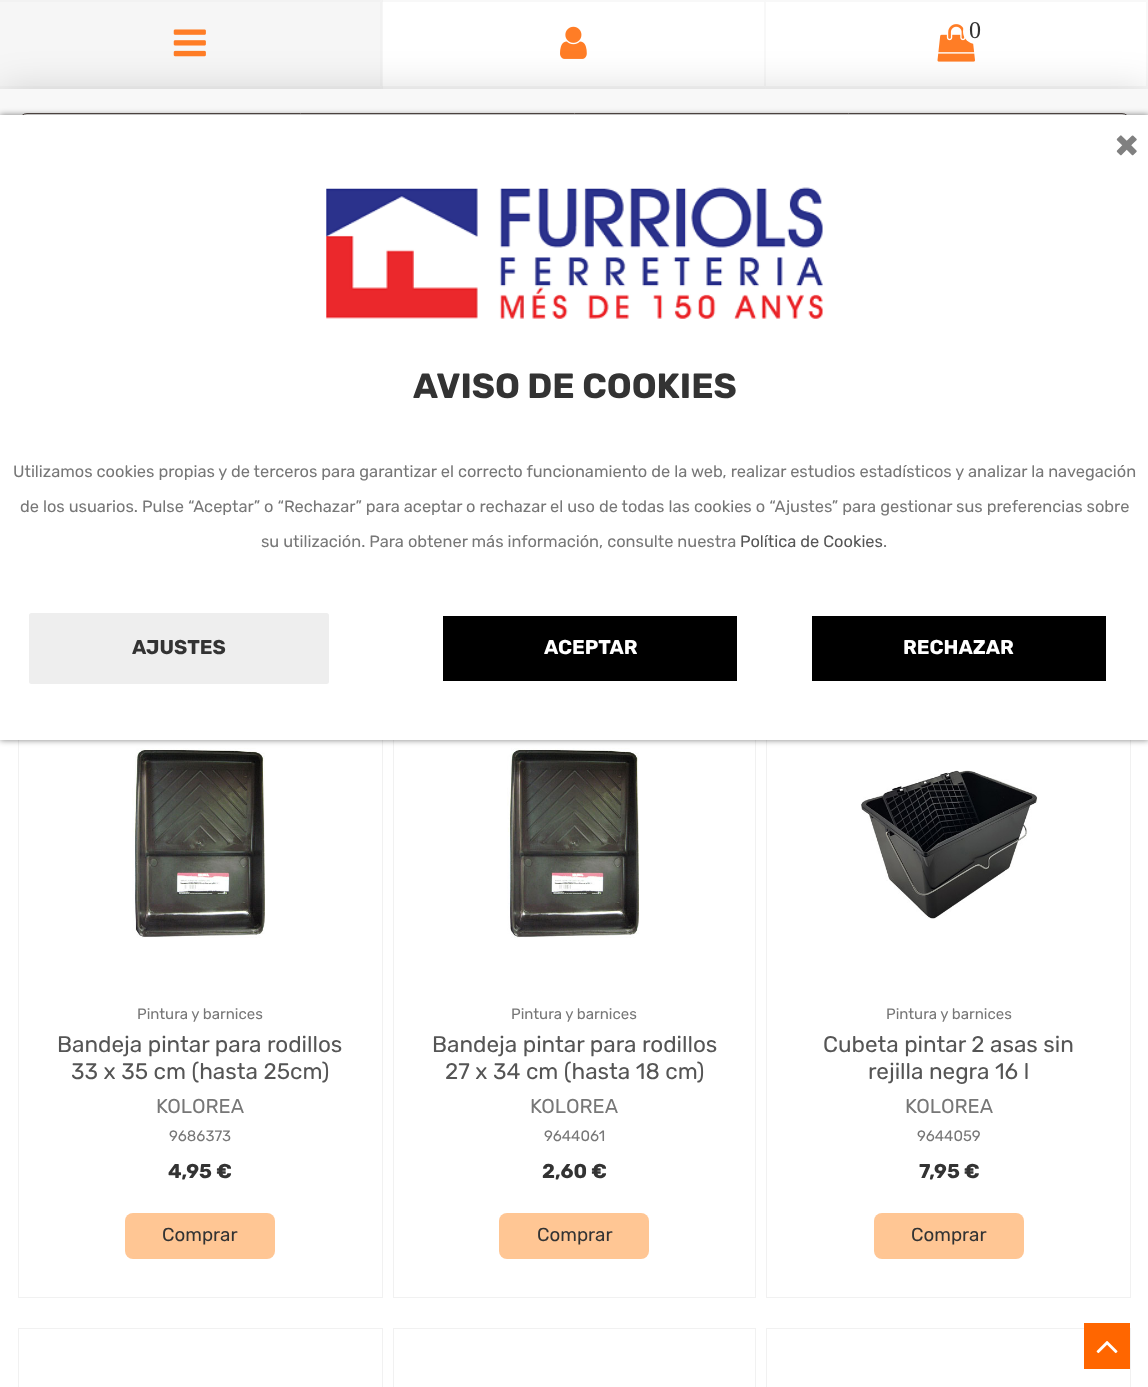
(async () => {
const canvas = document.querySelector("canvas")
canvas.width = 1148
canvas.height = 1387
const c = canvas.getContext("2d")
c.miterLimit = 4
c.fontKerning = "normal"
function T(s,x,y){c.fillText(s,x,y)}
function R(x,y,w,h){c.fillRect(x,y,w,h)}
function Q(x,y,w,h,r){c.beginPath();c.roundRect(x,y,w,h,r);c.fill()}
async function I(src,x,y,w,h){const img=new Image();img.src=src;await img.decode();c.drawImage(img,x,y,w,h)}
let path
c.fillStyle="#fff"
R(0,0,1148,1387)
c.fillStyle="#f6f6f6"
R(0,0,383,89)
c.fillStyle="#f2f2f2"
path = new Path2D("M0 0h382l-2 2h-380z")
c.fill(path)
path = new Path2D("M382 0v89l-2-3v-84z")
c.fill(path)
path = new Path2D("M382 89h-382v-3h380z")
c.fill(path)
await I("1.png",173,29,33,28)
c.fillStyle="#e8e8e84a"
path = new Path2D("M382 0h384l-2 2h-382z")
c.fill(path)
path = new Path2D("M766 0v89l-2-3v-84z")
c.fill(path)
path = new Path2D("M766 89h-384v-3h382z")
c.fill(path)
await I("2.png",560,26,27,33)
c.fillStyle="#f8f8f8"
path = new Path2D("M766 0h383l-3 2h-380z")
c.fill(path)
path = new Path2D("M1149 0v89l-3-3v-84z")
c.fill(path)
c.fillStyle="#e8e8e84a"
path = new Path2D("M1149 89h-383v-3h380z")
c.fill(path)
await I("3.png",937,24,38,38)
c.fillStyle="#fff"
c.beginPath()
c.arc(975.5,31.5,12.5,0,7)
c.fill()
c.font="24px Liberation Serif"
c.fillStyle="#333"
T("0",969,38)
c.fillStyle="#00000026"
c.filter="blur(19px)"
c.beginPath()
c.rect(1,90,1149,95)
c.fill()
c.filter="none"
c.fillStyle="#f8f8f8"
R(0,89,1148,26)
c.beginPath()
c.roundRect(19.5,113.5,1110,51,7.5)
c.strokeStyle="#5a504c"
c.stroke()
c.strokeStyle="#f1f1f1"
c.strokeRect(18.5,693.5,364,604)
await I("4.png",132,748,133,190)
c.font="15px Rubik"
c.fillStyle="#777"
T("Pintura y barnices",137,1019)
c.font="22.5px Rubik"
c.fillStyle="#555"
T("Bandeja pintar para rodillos",57,1052)
T("33 x 35 cm (hasta 25cm)",71,1079)
c.font="20px Rubik"
c.fillStyle="#777"
T("KOLOREA",156,1113)
c.font="15px Rubik"
T("9686373",169,1141)
c.font="bold 20px Rubik"
c.fillStyle="#333"
T("4,95 €",168,1178)
c.fillStyle="#ffc694"
Q(125,1213,150,46,8)
c.font="18.75px Rubik"
c.fillStyle="#333"
T("Comprar",162,1241)
c.strokeRect(393.5,693.5,362,604)
await I("5.png",507,748,132,190)
c.font="15px Rubik"
c.fillStyle="#777"
T("Pintura y barnices",511,1019)
c.font="22.5px Rubik"
c.fillStyle="#555"
T("Bandeja pintar para rodillos",432,1052)
T("27 x 34 cm (hasta 18 cm)",445,1079)
c.font="20px Rubik"
c.fillStyle="#777"
T("KOLOREA",530,1113)
c.font="15px Rubik"
T("9644061",544,1141)
c.font="bold 20px Rubik"
c.fillStyle="#333"
T("2,60 €",542,1178)
c.fillStyle="#ffc694"
Q(499,1213,150,46,8)
c.font="18.75px Rubik"
c.fillStyle="#333"
T("Comprar",537,1241)
c.strokeRect(766.5,693.5,364,604)
await I("6.png",861,770,177,149)
c.font="15px Rubik"
c.fillStyle="#777"
T("Pintura y barnices",886,1019)
c.font="22.5px Rubik"
c.fillStyle="#555"
T("Cubeta pintar 2 asas sin",823,1052)
T("rejilla negra 16 l",868,1079)
c.font="20px Rubik"
c.fillStyle="#777"
T("KOLOREA",905,1113)
c.font="15px Rubik"
T("9644059",917,1141)
c.font="bold 20px Rubik"
c.fillStyle="#333"
T("7,95 €",919,1178)
c.fillStyle="#ffc694"
Q(874,1213,150,46,8)
c.font="18.75px Rubik"
c.fillStyle="#333"
T("Comprar",911,1241)
c.strokeRect(18.5,1328.5,364,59)
c.strokeRect(393.5,1328.5,362,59)
c.strokeRect(766.5,1328.5,364,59)
c.fillStyle="#00000080"
c.filter="blur(3px)"
c.beginPath()
c.rect(0,115,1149,625)
c.fill()
c.filter="none"
c.fillStyle="#fff"
R(0,115,1148,625)
c.font="bold 39px Rubik"
c.fillStyle="#808080"
T("×",1115,157)
await I("7.png",326,187,497,132)
c.font="bold 35px Rubik"
c.fillStyle="#333"
T("AVISO DE COOKIES",413,398)
c.font="16.4px Rubik"
c.fillStyle="#777"
T("Utilizamos cookies propias y de terceros para garantizar el correcto funcionamiento de la web, realizar estudios estadísticos y analizar la navegación",13,477)
T("de los usuarios. Pulse “Aceptar” o “Rechazar” para aceptar o rechazar el uso de todas las cookies o “Ajustes” para gestionar sus preferencias sobre",20,512)
T("su utilización. Para obtener más información, consulte nuestra",261,547)
c.fillStyle="#555"
T("Política de Cookies",740,547)
c.fillStyle="#777"
T(".",883,547)
c.fillStyle="#eee"
c.beginPath()
c.roundRect(30.5,614.5,297,68,1)
c.fill()
c.strokeStyle="#eee"
c.lineWidth=3
c.stroke()
c.font="bold 20px Rubik"
c.fillStyle="#333"
T("AJUSTES",132,654)
c.fillStyle="#000"
c.beginPath()
c.roundRect(441.5,614.5,297,68,1)
c.fill()
c.strokeStyle="#fff"
c.stroke()
c.fillStyle="#fff"
T("ACEPTAR",544,654)
c.fillStyle="#000"
c.beginPath()
c.roundRect(810.5,614.5,297,68,1)
c.fill()
c.stroke()
c.fillStyle="#fff"
T("RECHAZAR",903,654)
c.fillStyle="#f60"
R(1084,1323,46,46)
await I("8.png",1096,1341,22,13)
})()
